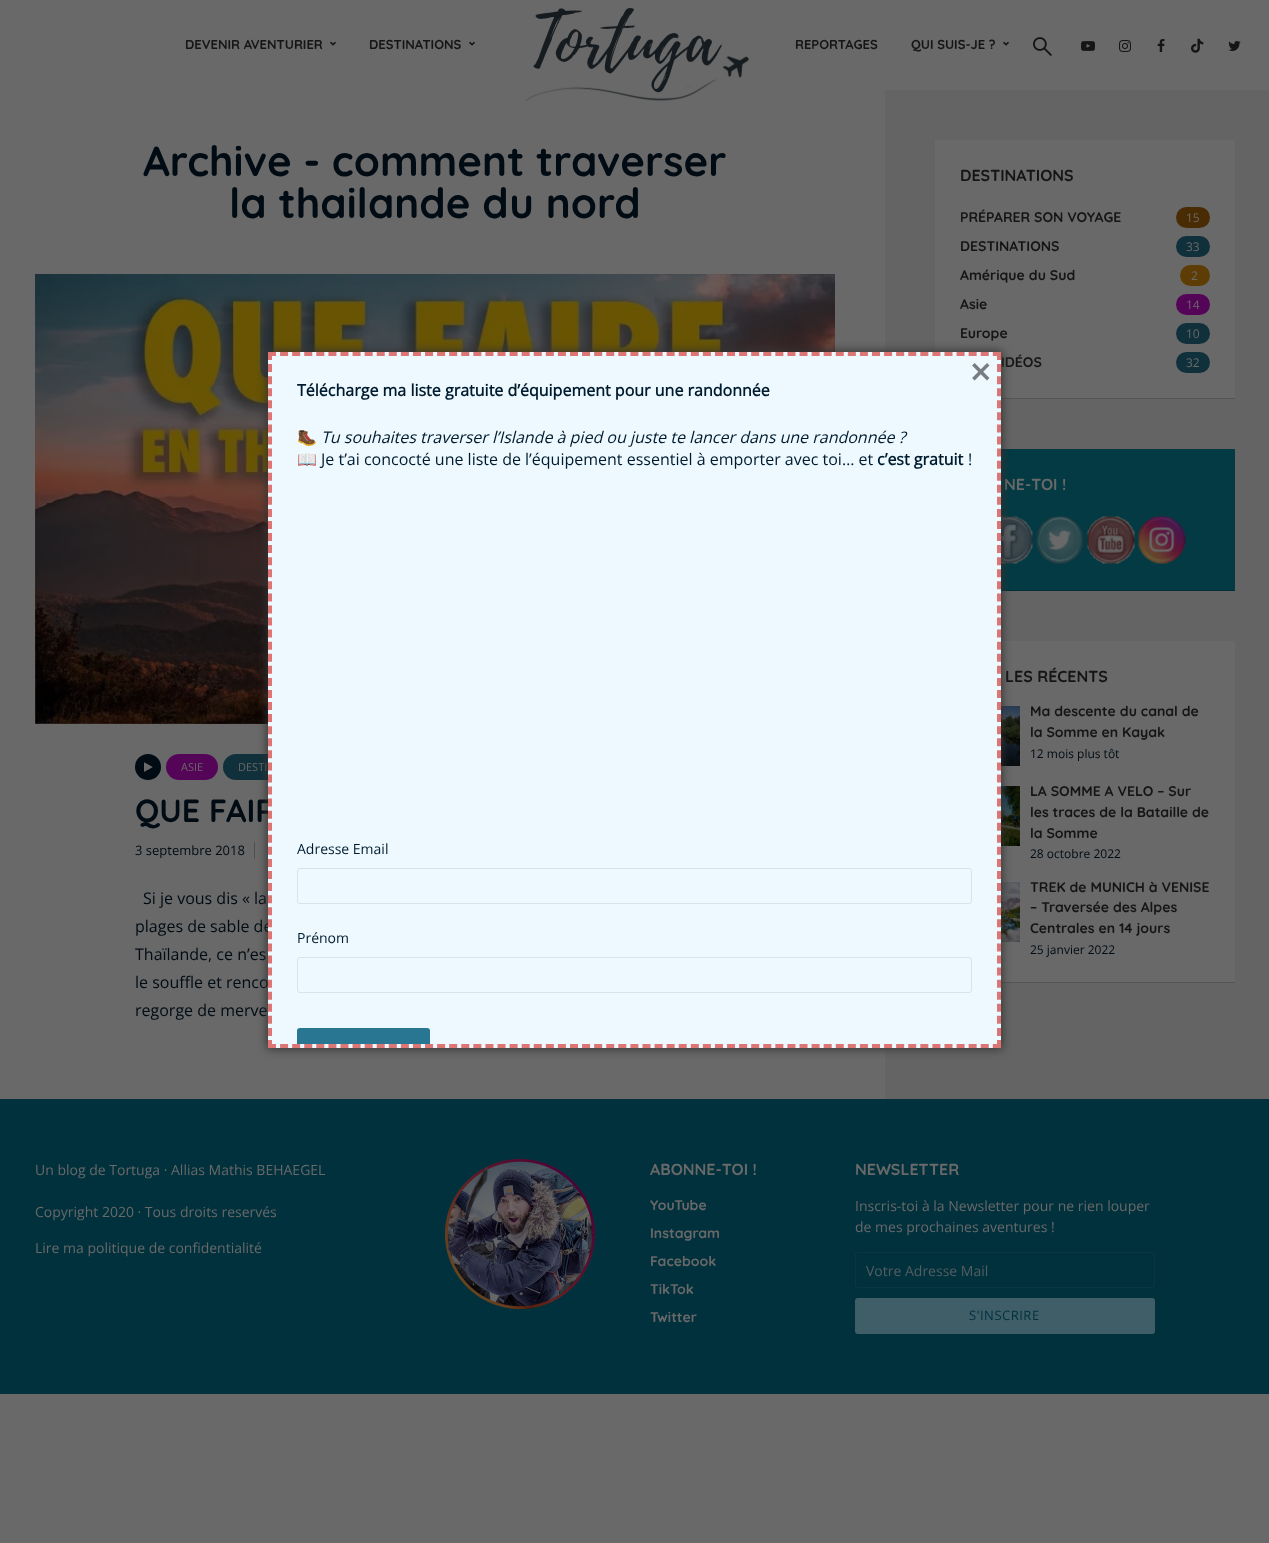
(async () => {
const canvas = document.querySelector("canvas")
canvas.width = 1269
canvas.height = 1543
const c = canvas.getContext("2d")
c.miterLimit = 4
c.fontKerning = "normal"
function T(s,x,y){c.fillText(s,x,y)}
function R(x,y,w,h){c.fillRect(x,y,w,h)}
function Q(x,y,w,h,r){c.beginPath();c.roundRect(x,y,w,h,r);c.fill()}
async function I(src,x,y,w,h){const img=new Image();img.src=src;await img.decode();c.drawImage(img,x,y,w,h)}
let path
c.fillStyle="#696969"
R(0,0,1269,1543)
c.font="300 13px Quicksand"
c.fillStyle="#151515"
T("DEVENIR AVENTURIER",185,49)
c.font="bold 13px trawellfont"
T("𐥻",330,49)
c.font="300 13px Quicksand"
T("DESTINATIONS",369,49)
c.font="bold 13px trawellfont"
T("𐥻",469,49)
await I("1.png",519,8,230,93)
c.font="300 13px Quicksand"
T("REPORTAGES",795,49)
T("QUI SUIS-JE ?",911,49)
c.font="bold 13px trawellfont"
T("𐥻",1003,49)
await I("2.png",1033,37,19,19)
await I("3.png",1081,41,14,10)
await I("4.png",1119,40,12,12)
await I("5.png",1157,39,8,13)
await I("6.png",1191,38,13,15)
await I("7.png",1228,41,13,10)
c.font="300 42px Quicksand"
c.fillStyle="#000b13"
T("Archive - comment traverser",143,176)
T("la thailande du nord",229,218)
await I("8.png",35,274,800,450)
c.beginPath()
c.arc(148,767,13,0,7)
c.fill()
await I("9.png",144,762,9,10)
c.fillStyle="#550557"
Q(166,754,52,26,13)
c.font="11px Open Sans"
c.fillStyle="#696969"
T("ASIE",181,771)
c.fillStyle="#10303b"
Q(223,754,106,26,13)
c.fillStyle="#696969"
T("DESTI",238,771)
c.font="300 32px Quicksand"
c.fillStyle="#000b13"
T("QUE FAIR",135,822)
c.font="13px Open Sans"
T("3 septembre 2018",135,855)
c.fillStyle="#4e5153"
R(254,842,1,17)
c.font="16px Open Sans"
c.fillStyle="#000b13"
T("Si je vous dis « la",143,904)
T("plages de sable de",135,932)
T("Thaïlande, ce n’es",135,960)
T("le souffle et renco",135,988)
T("regorge de merve",135,1016)
c.fillStyle="#646464"
R(885,90,384,1009)
c.fillStyle="#696969"
R(935,140,300,258)
c.fillStyle="#545454"
R(1001,398,234,1)
c.font="300 16px Quicksand"
c.fillStyle="#151515"
T("DESTINATIONS",960,181)
c.font="300 14px Quicksand"
T("PRÉPARER SON VOYAGE",960,222)
c.fillStyle="#4a2c04"
Q(1176,207,34,21,10.5)
c.font="12px Open Sans"
c.fillStyle="#696969"
T("15",1186,222)
c.font="300 14px Quicksand"
c.fillStyle="#151515"
T("DESTINATIONS",960,251)
c.fillStyle="#10303b"
Q(1176,236,34,21,10.5)
c.font="12px Open Sans"
c.fillStyle="#696969"
T("33",1186,251)
c.font="300 14px Quicksand"
c.fillStyle="#151515"
T("Amérique du Sud",960,280)
c.fillStyle="#5d3d05"
Q(1180,265,30,21,10.5)
c.font="12px Open Sans"
c.fillStyle="#696969"
T("2",1191,280)
c.font="300 14px Quicksand"
c.fillStyle="#151515"
T("Asie",960,309)
c.fillStyle="#550557"
Q(1176,294,34,21,10.5)
c.font="12px Open Sans"
c.fillStyle="#696969"
T("14",1186,309)
c.font="300 14px Quicksand"
c.fillStyle="#151515"
T("Europe",960,338)
c.fillStyle="#10303b"
Q(1176,323,34,21,10.5)
c.font="12px Open Sans"
c.fillStyle="#696969"
T("10",1186,338)
c.font="300 14px Quicksand"
c.fillStyle="#151515"
T("IDÉOS",1001,367)
c.fillStyle="#10303b"
Q(1176,352,34,21,10.5)
c.font="12px Open Sans"
c.fillStyle="#696969"
T("32",1186,367)
c.fillStyle="#043a43"
R(1001,449,234,141)
c.fillStyle="#032e35"
R(1001,590,234,1)
c.font="300 16px Quicksand"
c.fillStyle="#696969"
T("NE-TOI !",1004,490)
await I("10.png",1001,516,32,48)
await I("11.png",1036,516,48,48)
await I("12.png",1087,516,48,48)
await I("13.png",1138,516,48,48)
R(1001,641,234,341)
c.fillStyle="#545454"
R(1001,982,234,1)
c.fillStyle="#151515"
T("LES RÉCENTS",1005,682)
await I("14.png",1001,706,19,60)
c.font="300 14px Quicksand"
T("Ma descente du canal de",1030,716)
T("la Somme en Kayak",1030,737)
c.font="12px Open Sans"
c.fillStyle="#000b13"
T("12 mois plus tôt",1030,758)
await I("15.png",1001,786,19,60)
c.font="300 14px Quicksand"
c.fillStyle="#151515"
T("LA SOMME A VELO – Sur",1030,796)
T("les traces de la Bataille de",1030,817)
T("la Somme",1030,838)
c.font="12px Open Sans"
c.fillStyle="#000b13"
T("28 octobre 2022",1030,858)
await I("16.png",1001,882,19,60)
c.font="300 14px Quicksand"
c.fillStyle="#151515"
T("TREK de MUNICH à VENISE",1030,892)
T("– Traversée des Alpes",1030,912)
T("Centrales en 14 jours",1030,933)
c.font="12px Open Sans"
c.fillStyle="#000b13"
T("25 janvier 2022",1030,954)
c.fillStyle="#333"
c.filter="blur(5px)"
c.beginPath()
c.rect(267,351,735,698)
c.fill()
c.filter="none"
c.fillStyle="#edf9ff"
R(268,352,733,696)
path = new Path2D("M268 354h733")
c.strokeStyle="#dd7575"
c.lineWidth=4
c.setLineDash([8,4.08])
c.stroke(path)
path = new Path2D("M999 352v696")
c.setLineDash([8,4.07])
c.stroke(path)
path = new Path2D("M268 1046h733")
c.setLineDash([8,4.08])
c.stroke(path)
path = new Path2D("M270 352v696")
c.setLineDash([8,4.07])
c.stroke(path)
c.font="bold 36px Open Sans"
c.fillStyle="#777d80"
T("×",970,385)
c.font="bold 16px Open Sans"
c.fillStyle="#001b2e"
T("Télécharge ma liste gratuite d’équipement pour une randonnée",297,396)
c.font="16px Noto Color Emoji"
T("🥾",297,443)
c.font="italic 16px Open Sans"
T("Tu souhaites traverser l’Islande à pied ou juste te lancer dans une randonnée ?",321,443)
c.font="16px Noto Color Emoji"
T("📖",297,465)
c.font="16px Open Sans"
T("Je t’ai concocté une liste de l’équipement essentiel à emporter avec toi… et",321,465)
c.font="bold 16px Open Sans"
T("c’est gratuit",877,465)
c.font="16px Open Sans"
T("!",968,465)
c.font="14px Open Sans"
T("Adresse Email",297,854)
c.beginPath()
c.roundRect(297.5,868.5,674,35,2.5)
c.strokeStyle="#d5e3ea"
c.lineWidth=1
c.setLineDash([])
c.stroke()
T("Prénom",297,943)
c.beginPath()
c.roundRect(297.5,957.5,674,35,2.5)
c.stroke()
c.fillStyle="#287691"
c.beginPath()
c.roundRect(297,1028,133,16,[3,3,0,0])
c.fill()
c.fillStyle="#00313d"
R(0,1099,1269,295)
c.fillStyle="#696969"
T("Un blog de Tortuga · Allias Mathis BEHAEGEL",35,1175)
T("Copyright 2020 · Tous droits reservés",35,1217)
T("Lire ma politique de confidentialité",35,1253)
await I("17.png",445,1159,150,150)
c.font="300 16px Quicksand"
T("ABONNE-TOI !",650,1175)
c.font="300 14px Quicksand"
T("YouTube",650,1210)
T("Instagram",650,1238)
T("Facebook",650,1266)
T("TikTok",650,1294)
T("Twitter",650,1322)
c.font="300 16px Quicksand"
T("NEWSLETTER",855,1175)
c.font="14px Open Sans"
T("Inscris-toi à la Newsletter pour ne rien louper",855,1211)
T("de mes prochaines aventures !",855,1232)
c.beginPath()
c.roundRect(855.5,1252.5,299,35,2.5)
c.strokeStyle="#0b3741"
c.stroke()
c.fillStyle="#545d60"
T("Votre Adresse Mail",866,1276)
c.fillStyle="#405e68"
Q(855,1298,300,36,3)
c.letterSpacing="0.5px"
c.font="13px Open Sans"
c.fillStyle="#00313d"
T("S'INSCRIRE",969,1320)
})()
